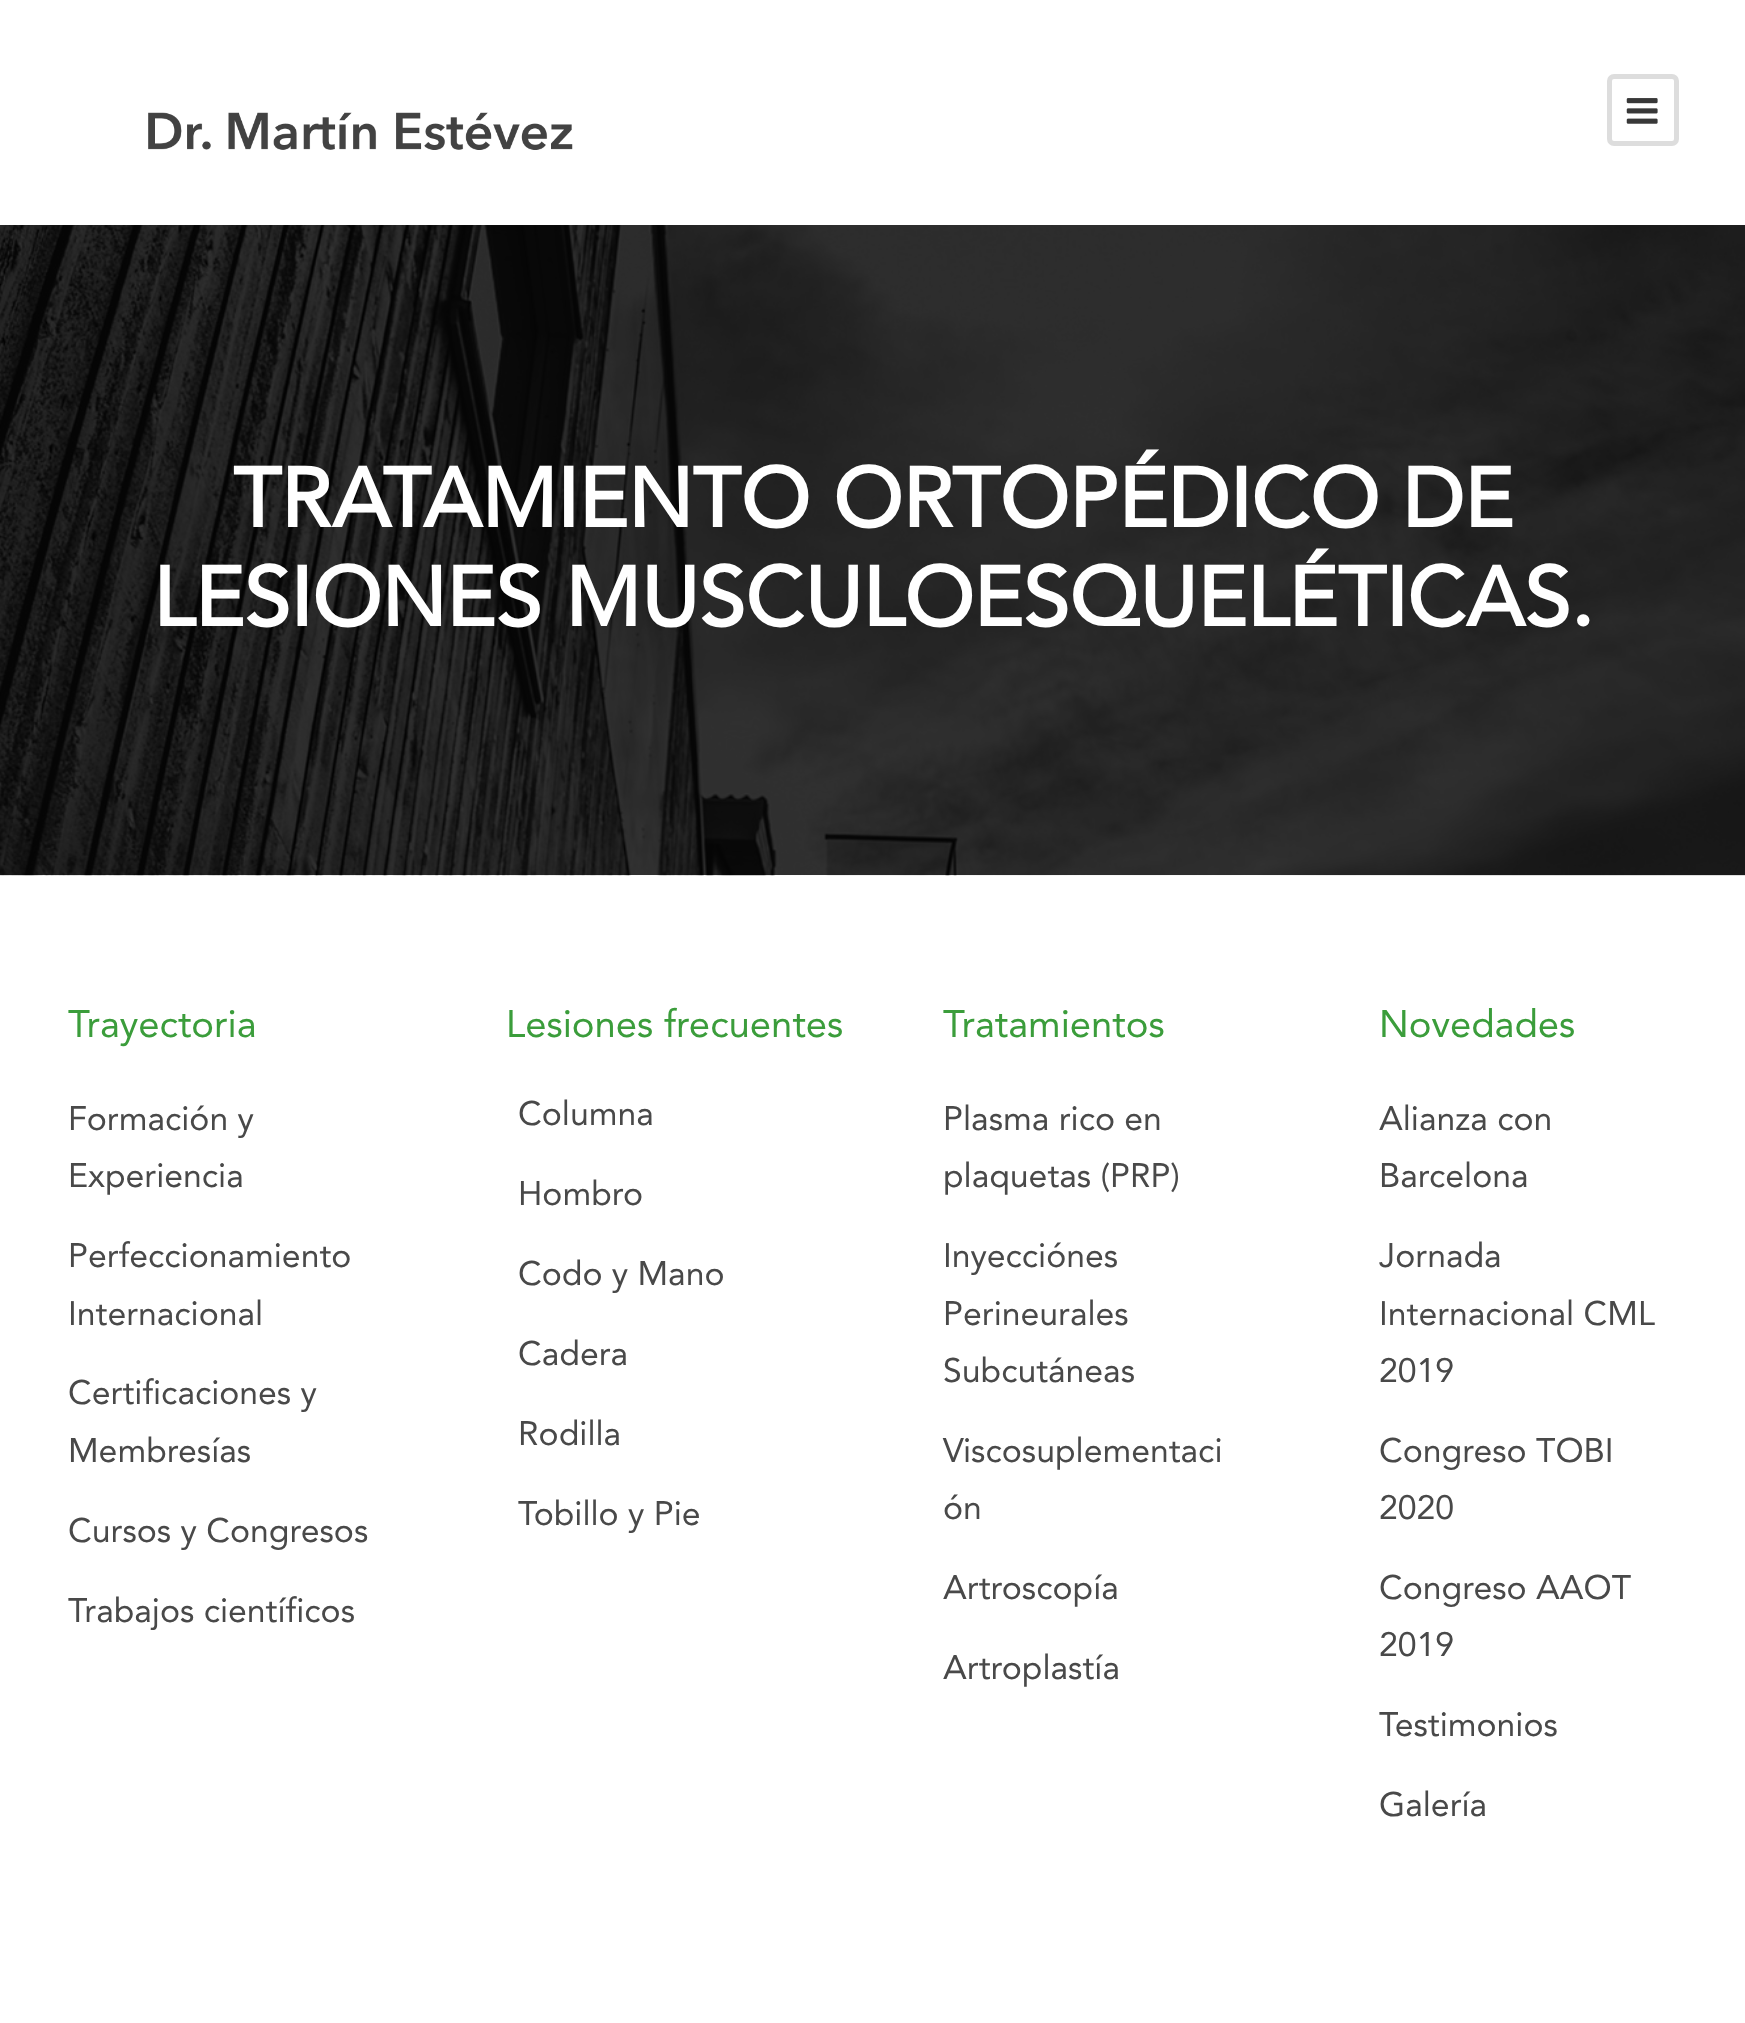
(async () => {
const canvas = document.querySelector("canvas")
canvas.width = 1745
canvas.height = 2023
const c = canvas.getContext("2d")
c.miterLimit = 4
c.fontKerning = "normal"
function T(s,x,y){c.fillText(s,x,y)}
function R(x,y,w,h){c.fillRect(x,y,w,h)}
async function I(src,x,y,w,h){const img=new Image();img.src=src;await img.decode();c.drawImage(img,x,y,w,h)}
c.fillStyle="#fff"
R(0,0,1745,2023)
await I("1.png",148,112,425,38)
c.beginPath()
c.roundRect(1609.5,76.5,67,67,4.5)
c.strokeStyle="#ddd"
c.lineWidth=5
c.stroke()
await I("2.png",1626,98,32,26)
await I("3.png",0,225,1745,651)
c.font="bold 83.25px Avenir"
T("TRATAMIENTO ORTOPÉDICO DE",233,527)
T("LESIONES MUSCULOESQUELÉTICAS.",153,626)
c.font="38.25px Avenir"
c.fillStyle="#3b9d3b"
T("Trayectoria",68,1037)
c.font="33.75px Avenir"
c.fillStyle="#494949"
T("Formación y",68,1130)
T("Experiencia",68,1187)
T("Perfeccionamiento",68,1267)
T("Internacional",68,1325)
T("Certificaciones y",68,1404)
T("Membresías",68,1462)
T("Cursos y Congresos",68,1542)
T("Trabajos científicos",68,1622)
c.font="38.25px Avenir"
c.fillStyle="#3b9d3b"
T("Lesiones frecuentes",506,1037)
c.font="33.75px Avenir"
c.fillStyle="#494949"
T("Columna",518,1125)
T("Hombro",518,1205)
T("Codo y Mano",518,1285)
T("Cadera",518,1365)
T("Rodilla",518,1445)
T("Tobillo y Pie",518,1525)
c.font="38.25px Avenir"
c.fillStyle="#3b9d3b"
T("Tratamientos",943,1037)
c.font="33.75px Avenir"
c.fillStyle="#494949"
T("Plasma rico en",943,1130)
T("plaquetas (PRP)",943,1187)
T("Inyecciónes",943,1267)
T("Perineurales",943,1325)
T("Subcutáneas",943,1382)
T("Viscosuplementaci",943,1462)
T("ón",943,1519)
T("Artroscopía",943,1599)
T("Artroplastía",943,1679)
c.font="38.25px Avenir"
c.fillStyle="#3b9d3b"
T("Novedades",1379,1037)
c.font="33.75px Avenir"
c.fillStyle="#494949"
T("Alianza con",1379,1130)
T("Barcelona",1379,1187)
T("Jornada",1379,1267)
T("Internacional CML",1379,1325)
T("2019",1379,1382)
T("Congreso TOBI",1379,1462)
T("2020",1379,1519)
T("Congreso AAOT",1379,1599)
T("2019",1379,1656)
T("Testimonios",1379,1736)
T("Galería",1379,1816)
})()
